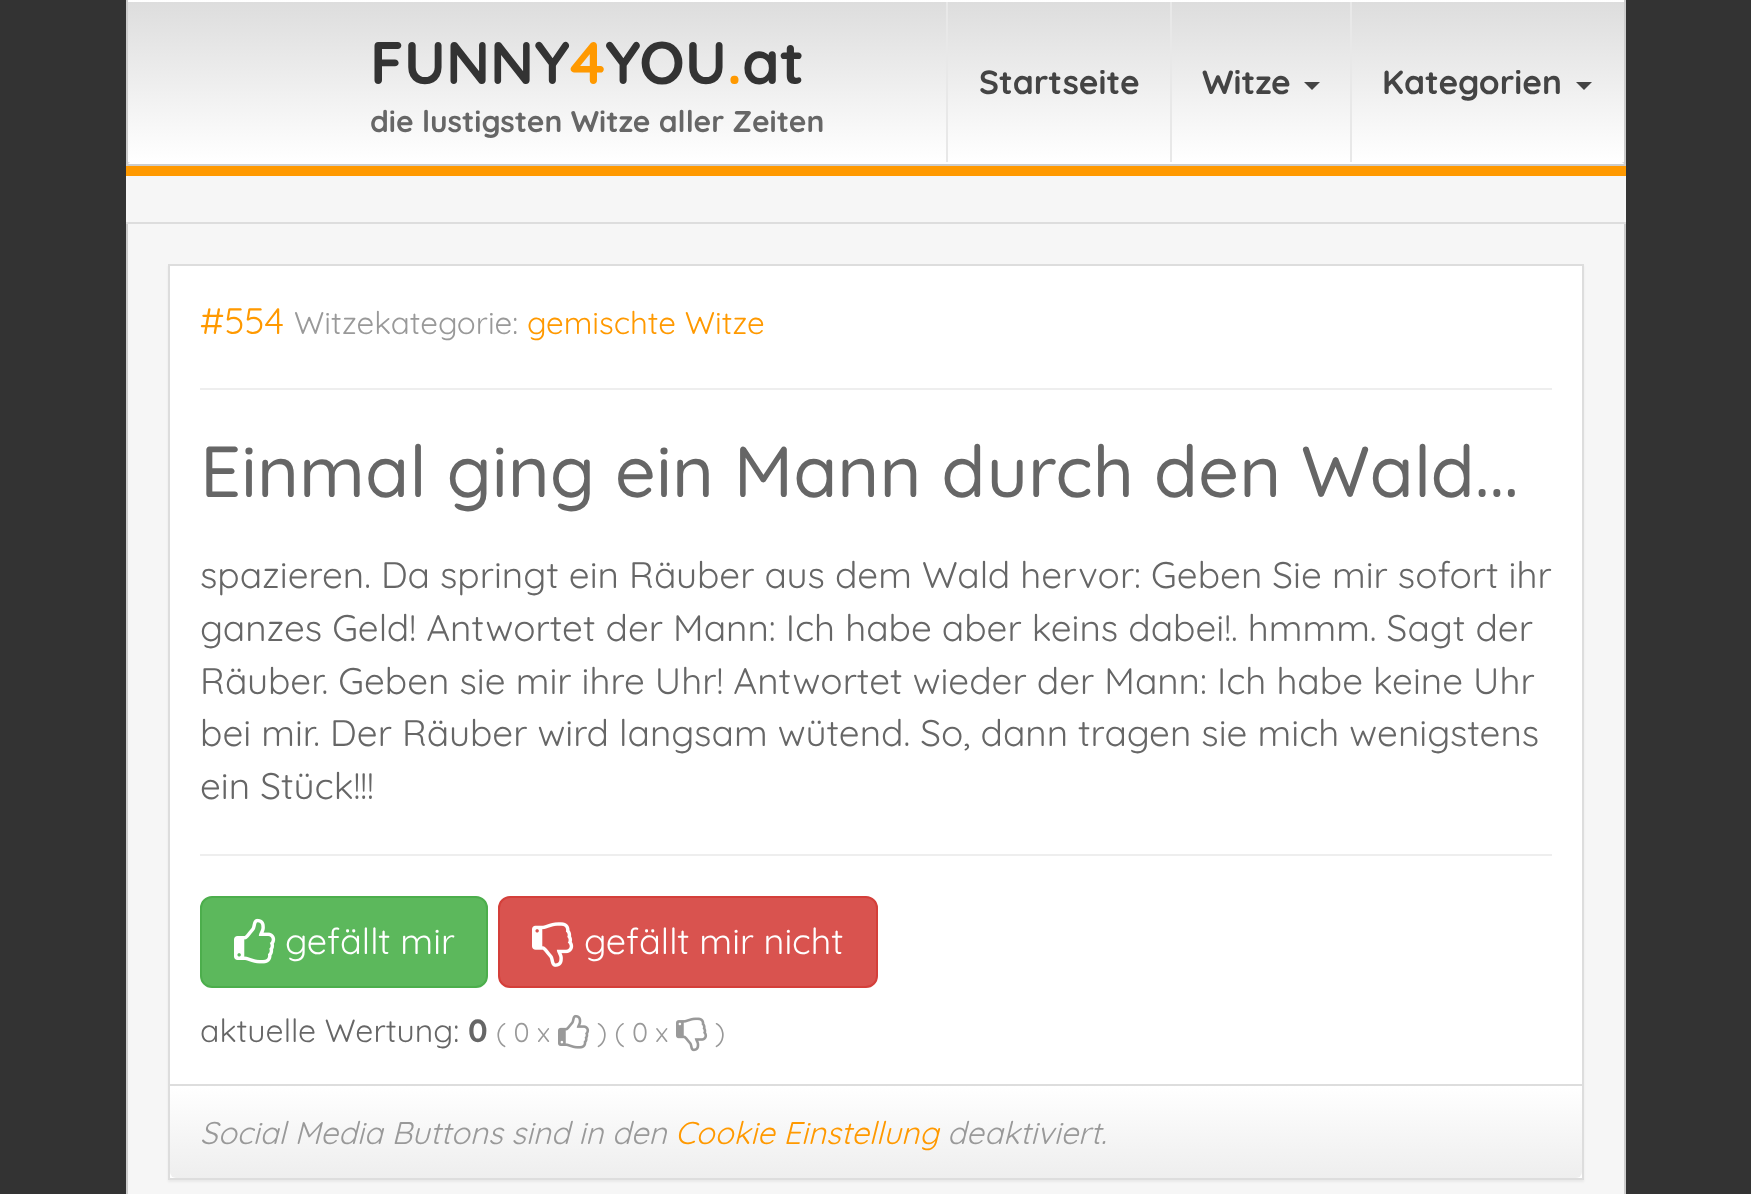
(async () => {
const canvas = document.querySelector("canvas")
canvas.width = 1751
canvas.height = 1194
const c = canvas.getContext("2d")
c.miterLimit = 4
c.fontKerning = "normal"
function T(s,x,y){c.fillText(s,x,y)}
function R(x,y,w,h){c.fillRect(x,y,w,h)}
async function I(src,x,y,w,h){const img=new Image();img.src=src;await img.decode();c.drawImage(img,x,y,w,h)}
let gradient, path
c.fillStyle="#333"
R(0,0,1751,1194)
c.fillStyle="#f6f6f6"
R(126,176,1500,1018)
c.fillStyle="#ccc"
R(1624,0,2,166)
R(126,164,1500,2)
R(126,0,2,166)
gradient = c.createLinearGradient(876,-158,876,2)
gradient.addColorStop(0,"#ddd")
gradient.addColorStop(1,"#fff")
c.fillStyle = gradient
R(128,0,1496,2)
gradient = c.createLinearGradient(876,2,876,162)
gradient.addColorStop(0,"#ddd")
gradient.addColorStop(1,"#fff")
c.fillStyle = gradient
R(128,2,1496,160)
gradient = c.createLinearGradient(876,162,876,322)
gradient.addColorStop(0,"#ddd")
gradient.addColorStop(1,"#fff")
c.fillStyle = gradient
R(128,162,1496,2)
c.fillStyle="#fff"
path = new Path2D("M1624 164h-1496l2-2h1492z")
c.fill(path)
c.font="bold 60px Quicksand"
c.fillStyle="#333"
T("FUNNY",370,84)
c.fillStyle="#f90"
T("4",570,84)
c.fillStyle="#333"
T("YOU",605,84)
c.fillStyle="#f90"
T(".",727,84)
c.fillStyle="#333"
T("at",742,84)
c.font="bold 30px Quicksand"
c.fillStyle="#666"
T("die lustigsten Witze aller Zeiten",370,132)
c.fillStyle="#e8e8e8"
R(946,2,2,160)
c.font="bold 33.5px Quicksand"
c.fillStyle="#444"
T("Startseite",979,94)
c.fillStyle="#e8e8e8"
R(1170,2,2,160)
c.fillStyle="#444"
T("Witze",1202,94)
path = new Path2D("M1304 82h16l-8 8z")
c.fill(path)
c.fillStyle="#e8e8e8"
R(1350,2,2,160)
c.fillStyle="#444"
T("Kategorien",1382,94)
path = new Path2D("M1576 82h16l-8 8z")
c.fill(path)
c.fillStyle="#f90"
R(126,166,1500,10)
c.fillStyle="#ddd"
R(126,222,1500,2)
c.fillStyle="#ccc"
R(1624,224,2,970)
R(126,224,2,970)
c.fillStyle="#0000000d"
c.filter="blur(1px)"
c.beginPath()
c.rect(168,266,1416,916)
c.fill()
c.filter="none"
c.fillStyle="#fff"
c.beginPath()
c.rect(169,265,1414,914)
c.fill()
c.strokeStyle="#ddd"
c.lineWidth=2
c.stroke()
c.font="36.95px Quicksand"
c.fillStyle="#f90"
T("#554",200,334)
c.font="31.4px Quicksand"
c.fillStyle="#999"
T("Witzekategorie:",294,334)
c.fillStyle="#f90"
T("gemischte Witze",527,334)
c.fillStyle="#eee"
R(200,388,1352,2)
c.font="500 72px Quicksand"
c.fillStyle="#666"
T("Einmal ging ein Mann durch den Wald...",200,497)
c.font="36.95px Quicksand"
T("spazieren. Da springt ein Räuber aus dem Wald hervor: Geben Sie mir sofort ihr",200,588)
T("ganzes Geld! Antwortet der Mann: Ich habe aber keins dabei!. hmmm. Sagt der",200,641)
T("Räuber. Geben sie mir ihre Uhr! Antwortet wieder der Mann: Ich habe keine Uhr",200,694)
T("bei mir. Der Räuber wird langsam wütend. So, dann tragen sie mich wenigstens",200,746)
T("ein Stück!!!",200,799)
c.fillStyle="#eee"
R(200,854,1352,2)
c.fillStyle="#5cb85c"
c.beginPath()
c.roundRect(201,897,286,90,11)
c.fill()
c.strokeStyle="#4cae4c"
c.stroke()
await I("1.png",234,918,42,46)
c.font="36px Quicksand"
c.fillStyle="#fff"
T("gefällt mir",285,954)
c.fillStyle="#d9534f"
c.beginPath()
c.roundRect(499,897,378,90,11)
c.fill()
c.strokeStyle="#d43f3a"
c.stroke()
await I("2.png",532,922,42,45)
c.fillStyle="#fff"
T("gefällt mir nicht",584,954)
c.font="32px Quicksand"
c.fillStyle="#666"
T("aktuelle Wertung:",200,1042)
c.font="bold 32px Quicksand"
T("0",468,1042)
c.font="27px Quicksand"
c.fillStyle="#999"
T("( 0 x",496,1042)
await I("3.png",558,1014,32,35)
T(") ( 0 x",597,1042)
await I("4.png",676,1017,32,35)
T(")",715,1042)
gradient = c.createLinearGradient(876,1086,876,1178)
gradient.addColorStop(0,"#fff")
gradient.addColorStop(1,"#eee")
c.fillStyle = gradient
c.beginPath()
c.roundRect(170,1086,1412,92,[0,0,6,6])
c.fill()
c.fillStyle="#ddd"
R(170,1084,1412,2)
c.font="italic 31.4px Quicksand"
c.fillStyle="#999"
T("Social Media Buttons sind in den",200,1144)
c.fillStyle="#f90"
T("Cookie Einstellung",675,1144)
c.fillStyle="#999"
T("deaktiviert.",947,1144)
})()
